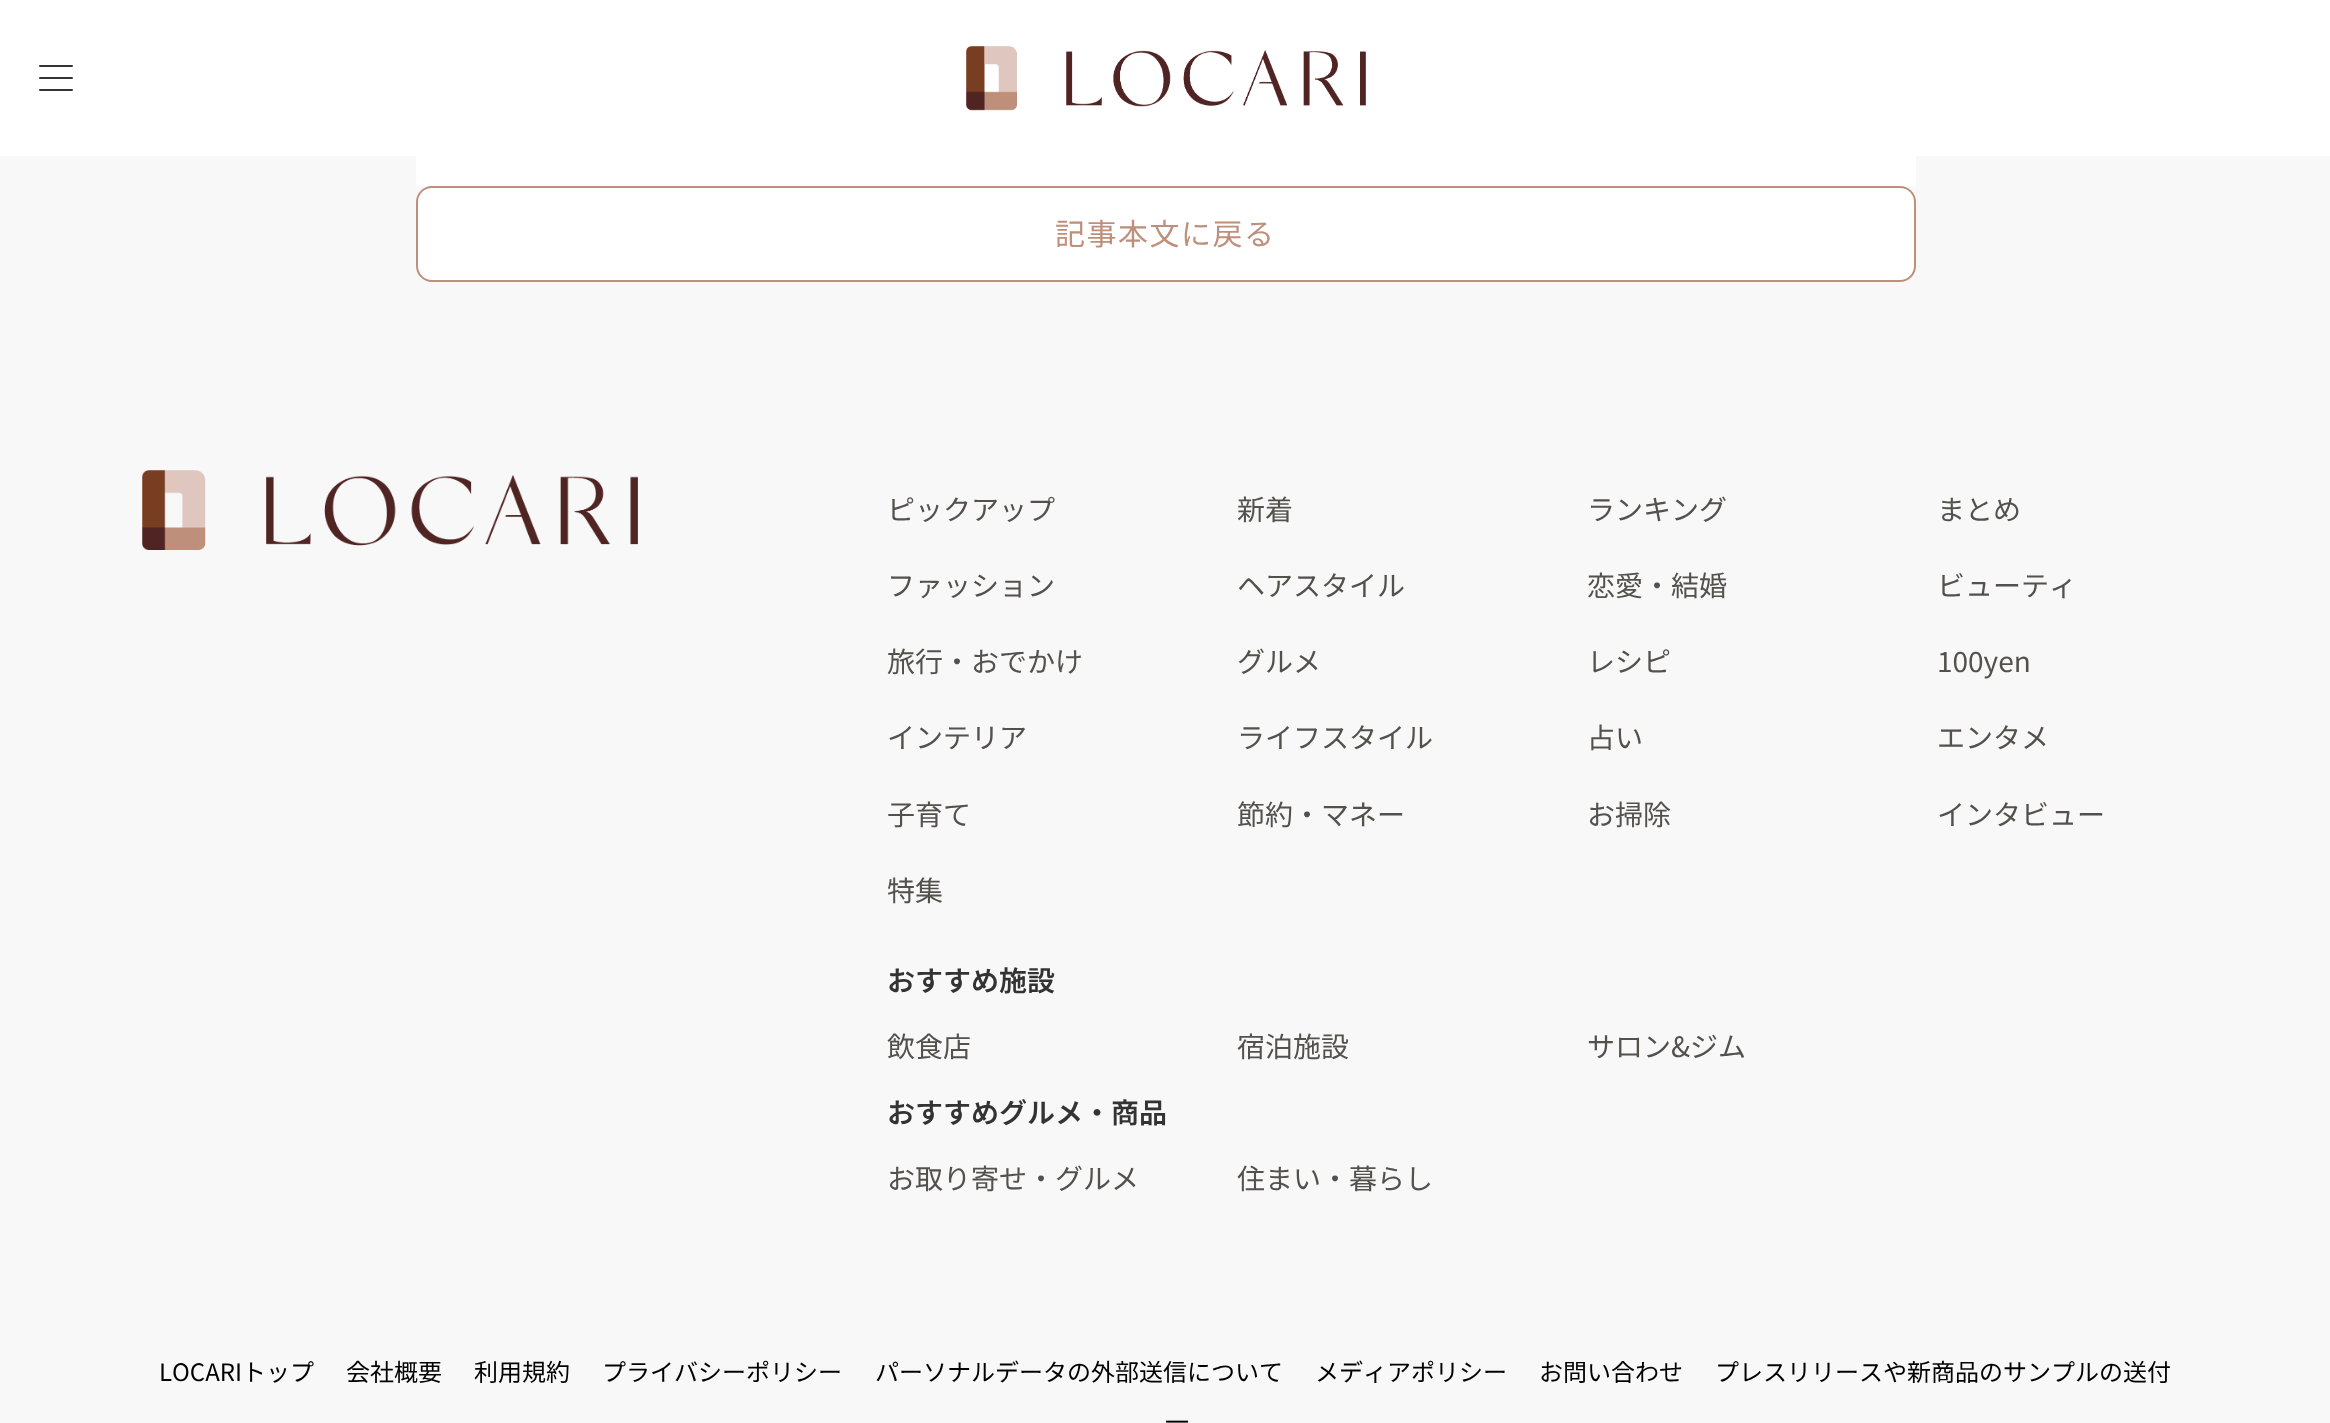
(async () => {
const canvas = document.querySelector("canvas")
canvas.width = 2330
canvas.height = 1423
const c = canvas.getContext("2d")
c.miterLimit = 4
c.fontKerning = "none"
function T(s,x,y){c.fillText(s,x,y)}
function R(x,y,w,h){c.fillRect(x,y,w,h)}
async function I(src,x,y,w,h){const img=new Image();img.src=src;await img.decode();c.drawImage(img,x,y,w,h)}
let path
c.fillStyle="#f8f8f8"
R(0,0,2330,1423)
c.fillStyle="#fff"
R(0,0,2330,156)
path = new Path2D("M40 66h32m-32 12h32m-32 12h32")
c.strokeStyle="#333"
c.lineWidth=2
c.lineCap="round"
c.stroke(path)
await I("1.png",966,46,400,65)
R(416,156,1500,30)
c.beginPath()
c.roundRect(417,187,1498,94,15)
c.fill()
c.strokeStyle="#be907c"
c.stroke()
c.letterSpacing="1.5px"
c.font="30px Noto Sans JP"
c.fillStyle="#be907c"
T("記事本文に戻る",1055,245)
await I("2.png",142,470,496,80)
c.letterSpacing="0px"
c.font="28px Noto Sans JP"
c.fillStyle="#54514d"
T("ピックアップ",887,520)
T("新着",1237,520)
T("ランキング",1587,520)
T("まとめ",1937,520)
T("ファッション",887,596)
T("ヘアスタイル",1237,596)
T("恋愛・結婚",1587,596)
T("ビューティ",1937,596)
T("旅行・おでかけ",887,672)
T("グルメ",1237,672)
T("レシピ",1587,672)
T("100yen",1937,672)
T("インテリア",887,748)
T("ライフスタイル",1237,748)
T("占い",1587,748)
T("エンタメ",1937,748)
T("子育て",887,825)
T("節約・マネー",1237,825)
T("お掃除",1587,825)
T("インタビュー",1937,825)
T("特集",887,901)
c.font="600 28px Noto Sans JP"
c.fillStyle="#333"
T("おすすめ施設",887,991)
c.font="28px Noto Sans JP"
c.fillStyle="#54514d"
T("飲食店",887,1057)
T("宿泊施設",1237,1057)
T("サロン&ジム",1587,1057)
c.font="600 28px Noto Sans JP"
c.fillStyle="#333"
T("おすすめグルメ・商品",887,1123)
c.font="28px Noto Sans JP"
c.fillStyle="#54514d"
T("お取り寄せ・グルメ",887,1189)
T("住まい・暮らし",1237,1189)
c.font="24px Noto Sans JP"
c.fillStyle="#000"
T("LOCARIトップ",159,1381)
T("会社概要",346,1381)
T("利用規約",474,1381)
T("プライバシーポリシー",602,1381)
T("パーソナルデータの外部送信について",875,1381)
T("メディアポリシー",1315,1381)
T("お問い合わせ",1539,1381)
T("プレスリリースや新商品のサンプルの送付",1715,1381)
T("一",1165,1431)
})()
